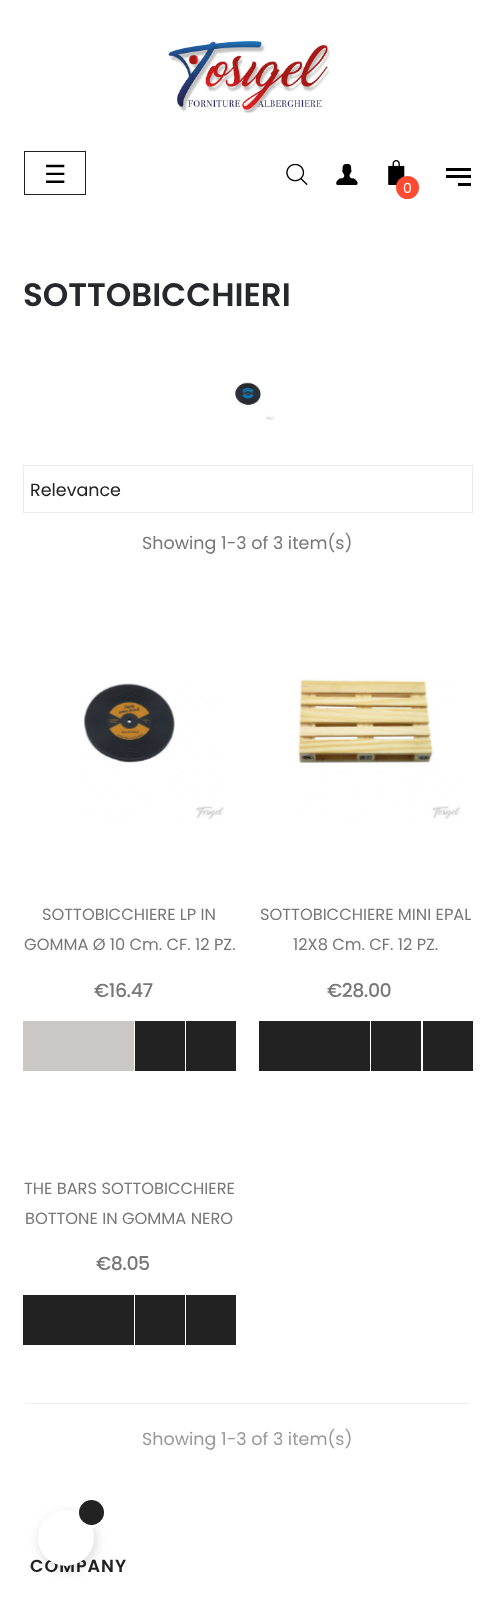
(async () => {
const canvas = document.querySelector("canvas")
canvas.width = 495
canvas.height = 1603
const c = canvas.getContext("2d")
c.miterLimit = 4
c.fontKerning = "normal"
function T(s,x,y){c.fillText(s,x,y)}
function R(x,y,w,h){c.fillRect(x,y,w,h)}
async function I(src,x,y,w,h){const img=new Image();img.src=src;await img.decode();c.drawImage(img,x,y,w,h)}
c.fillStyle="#fff"
R(0,0,495,1603)
await I("1.png",168,41,162,72)
c.strokeStyle="#222"
c.strokeRect(24.5,151.5,61,43)
c.font="25px DejaVu Sans"
c.fillStyle="#000"
T("☰",44,183)
await I("2.png",286,164,22,21)
await I("3.png",336,164,22,21)
R(446,168,25,3)
R(446,175,25,3)
R(458,183,13,3)
await I("4.png",388,160,17,25)
c.fillStyle="#ff4a32"
c.beginPath()
c.arc(407.5,187.5,11.5,0,7)
c.fill()
c.font="14px Poppins"
c.fillStyle="#fff"
T("0",403,193)
c.font="600 32.5px Poppins"
c.fillStyle="#26282b"
T("SOTTOBICCHIERI",23,306)
await I("5.png",235,382,40,38)
c.strokeStyle="#ebebeb"
c.strokeRect(23.5,465.5,449,47)
c.font="17.5px Poppins"
c.fillStyle="#222"
T("Relevance",30,496)
c.fillStyle="#777"
T("Showing 1-3 of 3 item(s)",142,549)
await I("6.png",83,683,141,136)
c.font="16.25px Poppins"
T("SOTTOBICCHIERE LP IN",42,920)
T("GOMMA Ø 10 Cm. CF. 12 PZ.",24,950)
c.letterSpacing="-0.5px"
c.font="500 19px Poppins"
T("€16.47",94,997)
c.fillStyle="#c9c8c5"
R(23,1021,111,50)
c.fillStyle="#222"
R(135,1021,50,50)
R(186,1021,50,50)
await I("7.png",297,679,164,140)
c.letterSpacing="0px"
c.font="16.25px Poppins"
c.fillStyle="#777"
T("SOTTOBICCHIERE MINI EPAL",260,920)
T("12X8 Cm. CF. 12 PZ.",293,950)
c.letterSpacing="-0.5px"
c.font="500 19px Poppins"
T("€28.00",327,997)
c.fillStyle="#222"
R(259,1021,111,50)
R(371,1021,50,50)
R(423,1021,50,50)
c.letterSpacing="0px"
c.font="16.25px Poppins"
c.fillStyle="#777"
T("THE BARS SOTTOBICCHIERE",24,1194)
T("BOTTONE IN GOMMA NERO",25,1224)
c.letterSpacing="-0.5px"
c.font="500 19px Poppins"
T("€8.05",96,1270)
c.fillStyle="#222"
R(23,1295,111,50)
R(135,1295,50,50)
R(186,1295,50,50)
c.fillStyle="#eee"
R(25,1403,445,1)
c.letterSpacing="0px"
c.font="17.5px Poppins"
c.fillStyle="#999"
T("Showing 1-3 of 3 item(s)",142,1445)
c.letterSpacing="1px"
c.font="600 17.5px Poppins"
c.fillStyle="#222"
T("COMPANY",30,1572)
c.fillStyle="#00000026"
c.filter="blur(6px)"
c.beginPath()
c.roundRect(40,1514,56,56,28)
c.fill()
c.filter="none"
c.fillStyle="#fff"
c.beginPath()
c.arc(66,1538,28,0,7)
c.fill()
c.beginPath()
c.arc(91,1513,13.5,0,7)
c.strokeStyle="#fff"
c.lineWidth=3
c.stroke()
c.fillStyle="#222"
c.beginPath()
c.arc(91.5,1512.5,12.5,0,7)
c.fill()
})()
